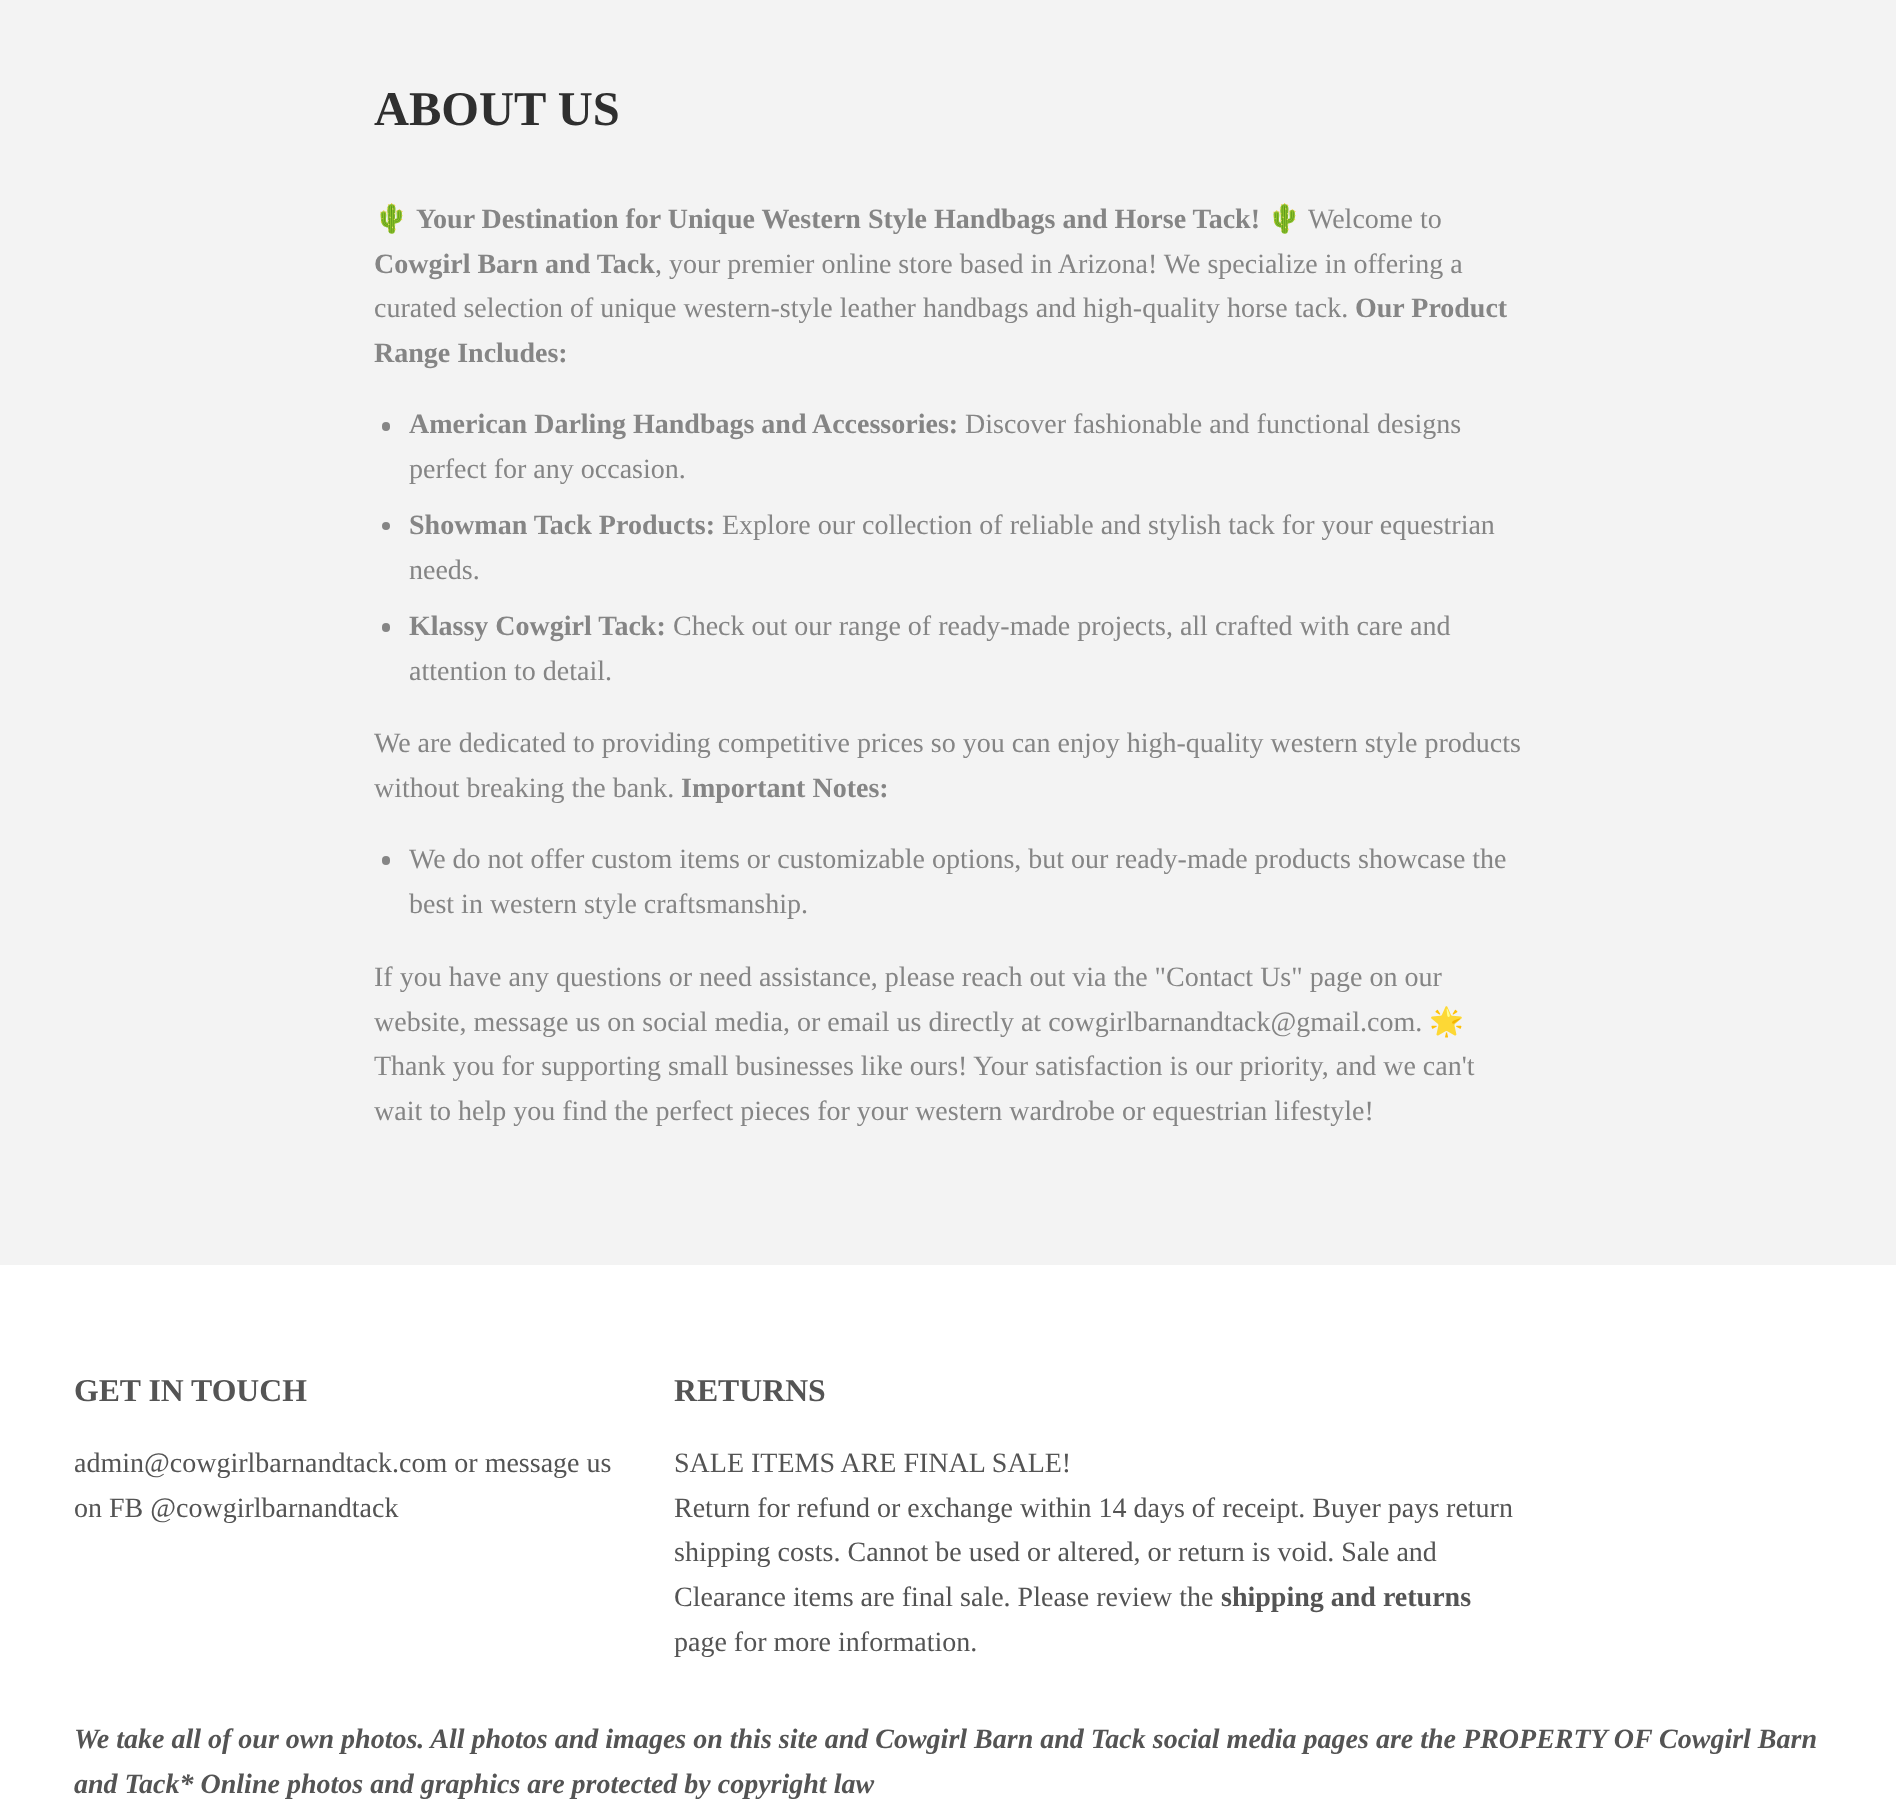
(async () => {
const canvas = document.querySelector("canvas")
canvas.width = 1896
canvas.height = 1818
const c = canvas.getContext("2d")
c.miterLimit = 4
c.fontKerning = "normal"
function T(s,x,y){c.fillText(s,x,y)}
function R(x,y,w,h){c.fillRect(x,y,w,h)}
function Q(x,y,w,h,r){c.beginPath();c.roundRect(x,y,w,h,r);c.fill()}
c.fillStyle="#f3f3f3"
R(0,0,1896,1818)
c.font="bold 48.5px Liberation Serif"
c.fillStyle="#2f2f2f"
T("ABOUT US",374,125)
c.font="28px Noto Color Emoji"
c.fillStyle="#858585"
T("🌵",374,228)
c.font="bold 28px Liberation Serif"
T("Your Destination for Unique Western Style Handbags and Horse Tack!",416,228)
c.font="28px Noto Color Emoji"
T("🌵",1267,228)
c.font="28px Liberation Serif"
T("Welcome to",1308,228)
c.font="bold 28px Liberation Serif"
T("Cowgirl Barn and Tack",374,273)
c.font="28px Liberation Serif"
T(", your premier online store based in Arizona! We specialize in offering a",655,273)
T("curated selection of unique western-style leather handbags and high-quality horse tack.",374,317)
c.font="bold 28px Liberation Serif"
T("Our Product",1355,317)
T("Range Includes:",374,362)
Q(382,422,8,9,4)
T("American Darling Handbags and Accessories:",409,433)
c.font="28px Liberation Serif"
T("Discover fashionable and functional designs",965,433)
T("perfect for any occasion.",409,478)
c.beginPath()
c.arc(386,526,4,0,7)
c.fill()
c.font="bold 28px Liberation Serif"
T("Showman Tack Products:",409,534)
c.font="28px Liberation Serif"
T("Explore our collection of reliable and stylish tack for your equestrian",722,534)
T("needs.",409,579)
Q(382,623,8,9,4)
c.font="bold 28px Liberation Serif"
T("Klassy Cowgirl Tack:",409,635)
c.font="28px Liberation Serif"
T("Check out our range of ready-made projects, all crafted with care and",673,635)
T("attention to detail.",409,680)
T("We are dedicated to providing competitive prices so you can enjoy high-quality western style products",374,752)
T("without breaking the bank.",374,797)
c.font="bold 28px Liberation Serif"
T("Important Notes:",681,797)
Q(382,856,8,9,4)
c.font="28px Liberation Serif"
T("We do not offer custom items or customizable options, but our ready-made products showcase the",409,868)
T("best in western style craftsmanship.",409,913)
T("If you have any questions or need assistance, please reach out via the \"Contact Us\" page on our",374,986)
T("website, message us on social media, or email us directly at cowgirlbarnandtack@gmail.com.",374,1031)
c.font="28px Noto Color Emoji"
T("🌟",1429,1031)
c.font="28px Liberation Serif"
T("Thank you for supporting small businesses like ours! Your satisfaction is our priority, and we can't",374,1075)
T("wait to help you find the perfect pieces for your western wardrobe or equestrian lifestyle!",374,1120)
c.fillStyle="#fff"
R(0,1265,1896,553)
c.font="bold 31.75px Liberation Serif"
c.fillStyle="#545454"
T("GET IN TOUCH",74,1401)
c.font="28px Liberation Serif"
T("admin@cowgirlbarnandtack.com or message us",74,1472)
T("on FB @cowgirlbarnandtack",74,1517)
c.font="bold 31.75px Liberation Serif"
T("RETURNS",674,1401)
c.font="28px Liberation Serif"
T("SALE ITEMS ARE FINAL SALE!",674,1472)
T("Return for refund or exchange within 14 days of receipt. Buyer pays return",674,1517)
T("shipping costs. Cannot be used or altered, or return is void. Sale and",674,1561)
T("Clearance items are final sale. Please review the",674,1606)
c.font="bold 28px Liberation Serif"
T("shipping and returns",1221,1606)
c.font="28px Liberation Serif"
T("page for more information.",674,1651)
c.font="italic bold 28px Liberation Serif"
T("We take all of our own photos. All photos and images on this site and Cowgirl Barn and Tack social media pages are the PROPERTY OF Cowgirl Barn",74,1748)
T("and Tack* Online photos and graphics are protected by copyright law",74,1793)
})()
